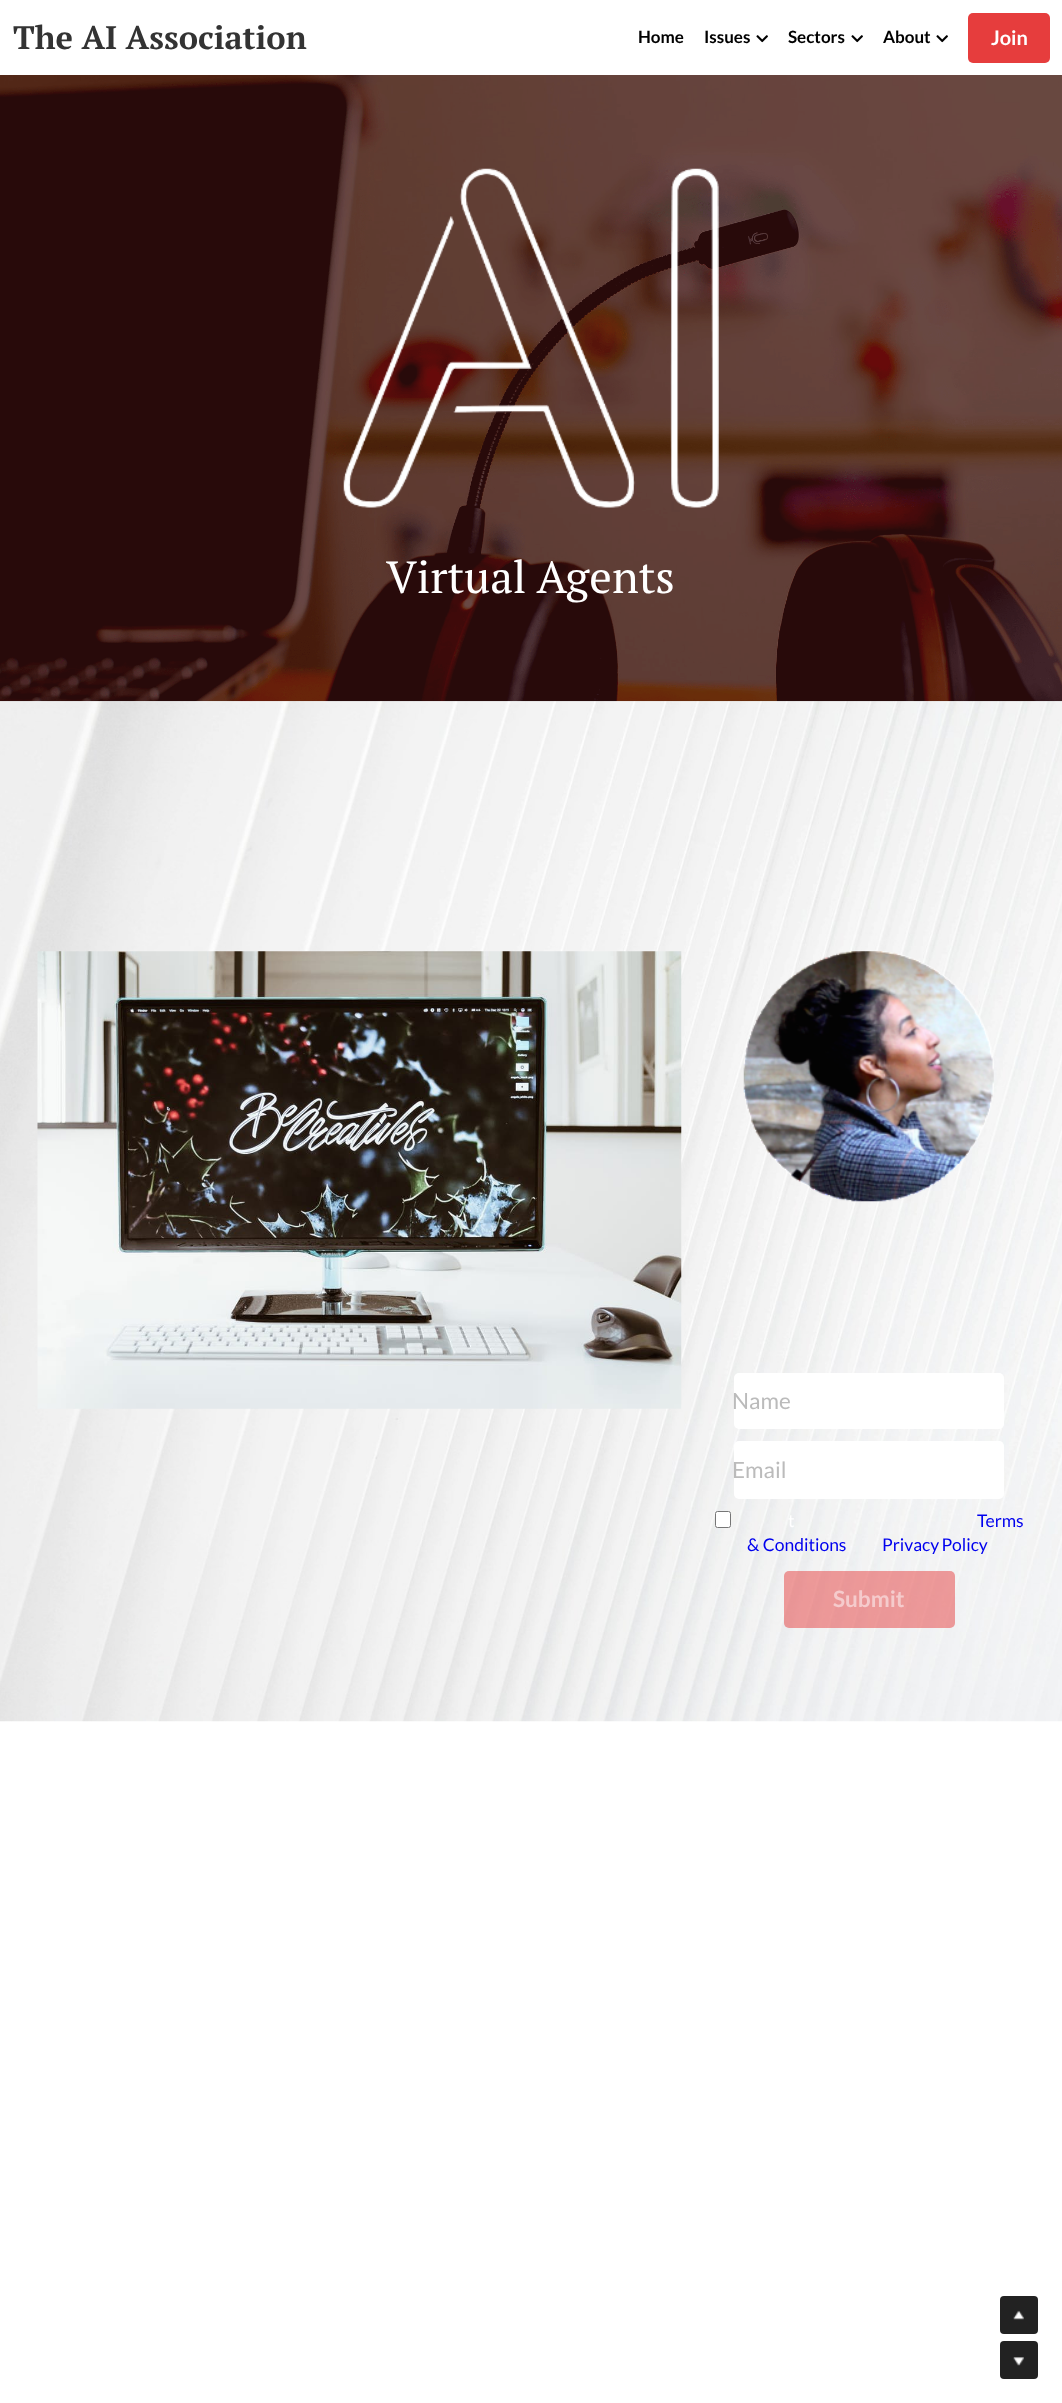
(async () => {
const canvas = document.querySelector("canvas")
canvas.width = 1062
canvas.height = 2403
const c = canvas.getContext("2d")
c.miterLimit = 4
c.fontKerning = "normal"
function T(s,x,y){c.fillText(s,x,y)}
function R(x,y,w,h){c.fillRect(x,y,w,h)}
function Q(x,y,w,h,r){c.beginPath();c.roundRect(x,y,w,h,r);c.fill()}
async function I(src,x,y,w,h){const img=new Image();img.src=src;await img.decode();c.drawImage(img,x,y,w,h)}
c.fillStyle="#fff"
R(0,0,1062,2403)
c.font="bold 32.5px PT Serif"
c.fillStyle="#333"
T("The AI Association",13,49)
c.font="bold 17px Lato"
c.fillStyle="#000"
T("Home",638,43)
T("Issues",704,43)
await I("1.png",756,35,12,8)
T("Sectors",788,43)
await I("1.png",851,35,12,8)
T("About",883,43)
await I("1.png",936,35,12,8)
c.fillStyle="#e63d3d"
Q(968,13,82,50,5)
c.font="bold 20px Lato"
c.fillStyle="#fff"
T("Join",991,45)
await I("2.png",0,75,1062,627)
await I("3.png",343,168,376,340)
c.font="45px PT Serif"
T("Virtual Agents",386,593)
await I("4.png",0,701,1062,1021)
await I("5.png",37,951,645,458)
await I("6.png",743,951,251,251)
Q(734,1373,270,56,5)
c.font="22.5px Lato"
c.fillStyle="#bbb"
T("Name",732,1409)
c.fillStyle="#fff"
Q(734,1441,270,58,5)
c.fillStyle="#bbb"
T("Email",732,1478)
c.fillStyle="#fff"
c.beginPath()
c.roundRect(715.5,1511.5,15,16,2)
c.fill()
c.strokeStyle="#767676"
c.stroke()
c.font="17.5px Lato"
T("t",788,1527)
c.fillStyle="#00e"
T("Terms",977,1527)
T("& Conditions",747,1551)
c.wordSpacing="-1px"
T("Privacy Policy",882,1551)
c.fillStyle="#e63d3d80"
Q(784,1571,171,57,5)
c.wordSpacing="0px"
c.font="bold 22.5px Lato"
c.fillStyle="#f5cbcc"
T("Submit",833,1607)
c.fillStyle="#222"
Q(1000,2296,38,38,4)
await I("7.png",1013,2310,11,10)
Q(1000,2341,38,38,4)
await I("8.png",1013,2357,11,9)
})()
